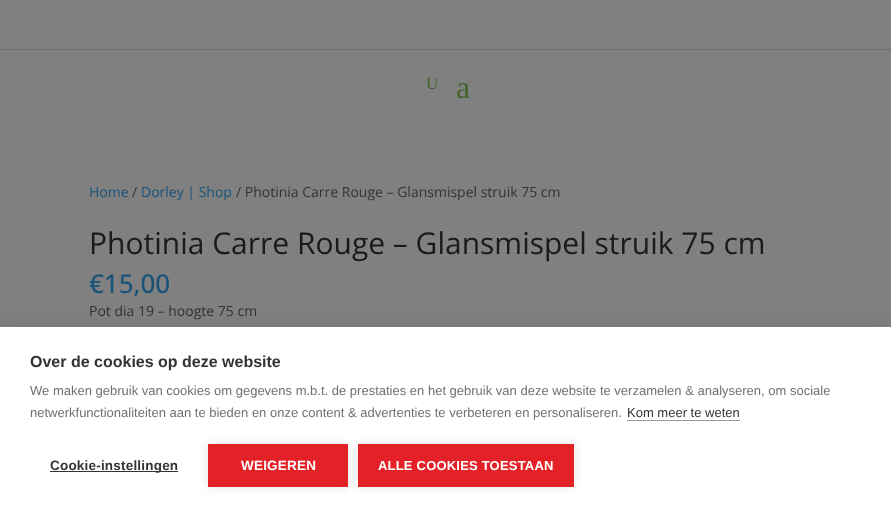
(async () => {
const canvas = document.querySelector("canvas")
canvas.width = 891
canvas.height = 512
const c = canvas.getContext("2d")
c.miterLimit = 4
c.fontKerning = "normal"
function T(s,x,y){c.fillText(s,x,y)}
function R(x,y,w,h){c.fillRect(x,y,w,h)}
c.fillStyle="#808080"
R(0,0,891,512)
c.fillStyle="#6f6f6f"
R(0,49,891,1)
c.font="17px Liberation Serif"
c.fillStyle="#43632b"
T("U",426,89)
c.font="32px Liberation Serif"
T("a",456,98)
c.font="14px Open Sans"
c.fillStyle="#175279"
T("Home",89,197)
c.fillStyle="#333"
T("/",132,197)
c.fillStyle="#175279"
T("Dorley | Shop",141,197)
c.fillStyle="#333"
T("/ Photinia Carre Rouge – Glansmispel struik 75 cm",236,197)
c.font="30px Open Sans"
c.fillStyle="#1a1a1a"
T("Photinia Carre Rouge – Glansmispel struik 75 cm",89,254)
c.font="500 26px Open Sans"
c.fillStyle="#175279"
T("€15,00",89,293)
c.font="14px Open Sans"
c.fillStyle="#333"
T("Pot dia 19 – hoogte 75 cm",89,316)
c.fillStyle="#0000001a"
c.filter="blur(10px)"
c.beginPath()
c.rect(0,327,891,185)
c.fill()
c.filter="none"
c.fillStyle="#fff"
R(0,327,891,185)
c.font="bold 16px Liberation Sans"
c.fillStyle="#333"
T("Over de cookies op deze website",30,367)
c.font="13px Liberation Sans"
c.fillStyle="#707070"
T("We maken gebruik van cookies om gegevens m.b.t. de prestaties en het gebruik van deze website te verzamelen & analyseren, om sociale",30,395)
T("netwerkfunctionaliteiten aan te bieden en onze content & advertenties te verbeteren en personaliseren.",30,417)
c.fillStyle="#333"
T("Kom meer te weten",627,417)
c.fillStyle="#999"
R(627,420,113,1)
c.fillStyle="#333"
R(50,471,128,1)
c.letterSpacing="0.2px"
c.font="bold 13.5px Liberation Sans"
T("Cookie-instellingen",50,470)
c.fillStyle="#0000001f"
c.filter="blur(5px)"
c.beginPath()
c.rect(208,444,140,43)
c.fill()
c.filter="none"
c.fillStyle="#e42127"
R(208,444,140,43)
c.fillStyle="#fff"
T("WEIGEREN",241,470)
c.fillStyle="#0000001f"
c.filter="blur(5px)"
c.beginPath()
c.rect(358,444,216,43)
c.fill()
c.filter="none"
c.fillStyle="#e42127"
R(358,444,216,43)
c.font="bold 13px Liberation Sans"
c.fillStyle="#fff"
T("ALLE COOKIES TOESTAAN",378,470)
})()
